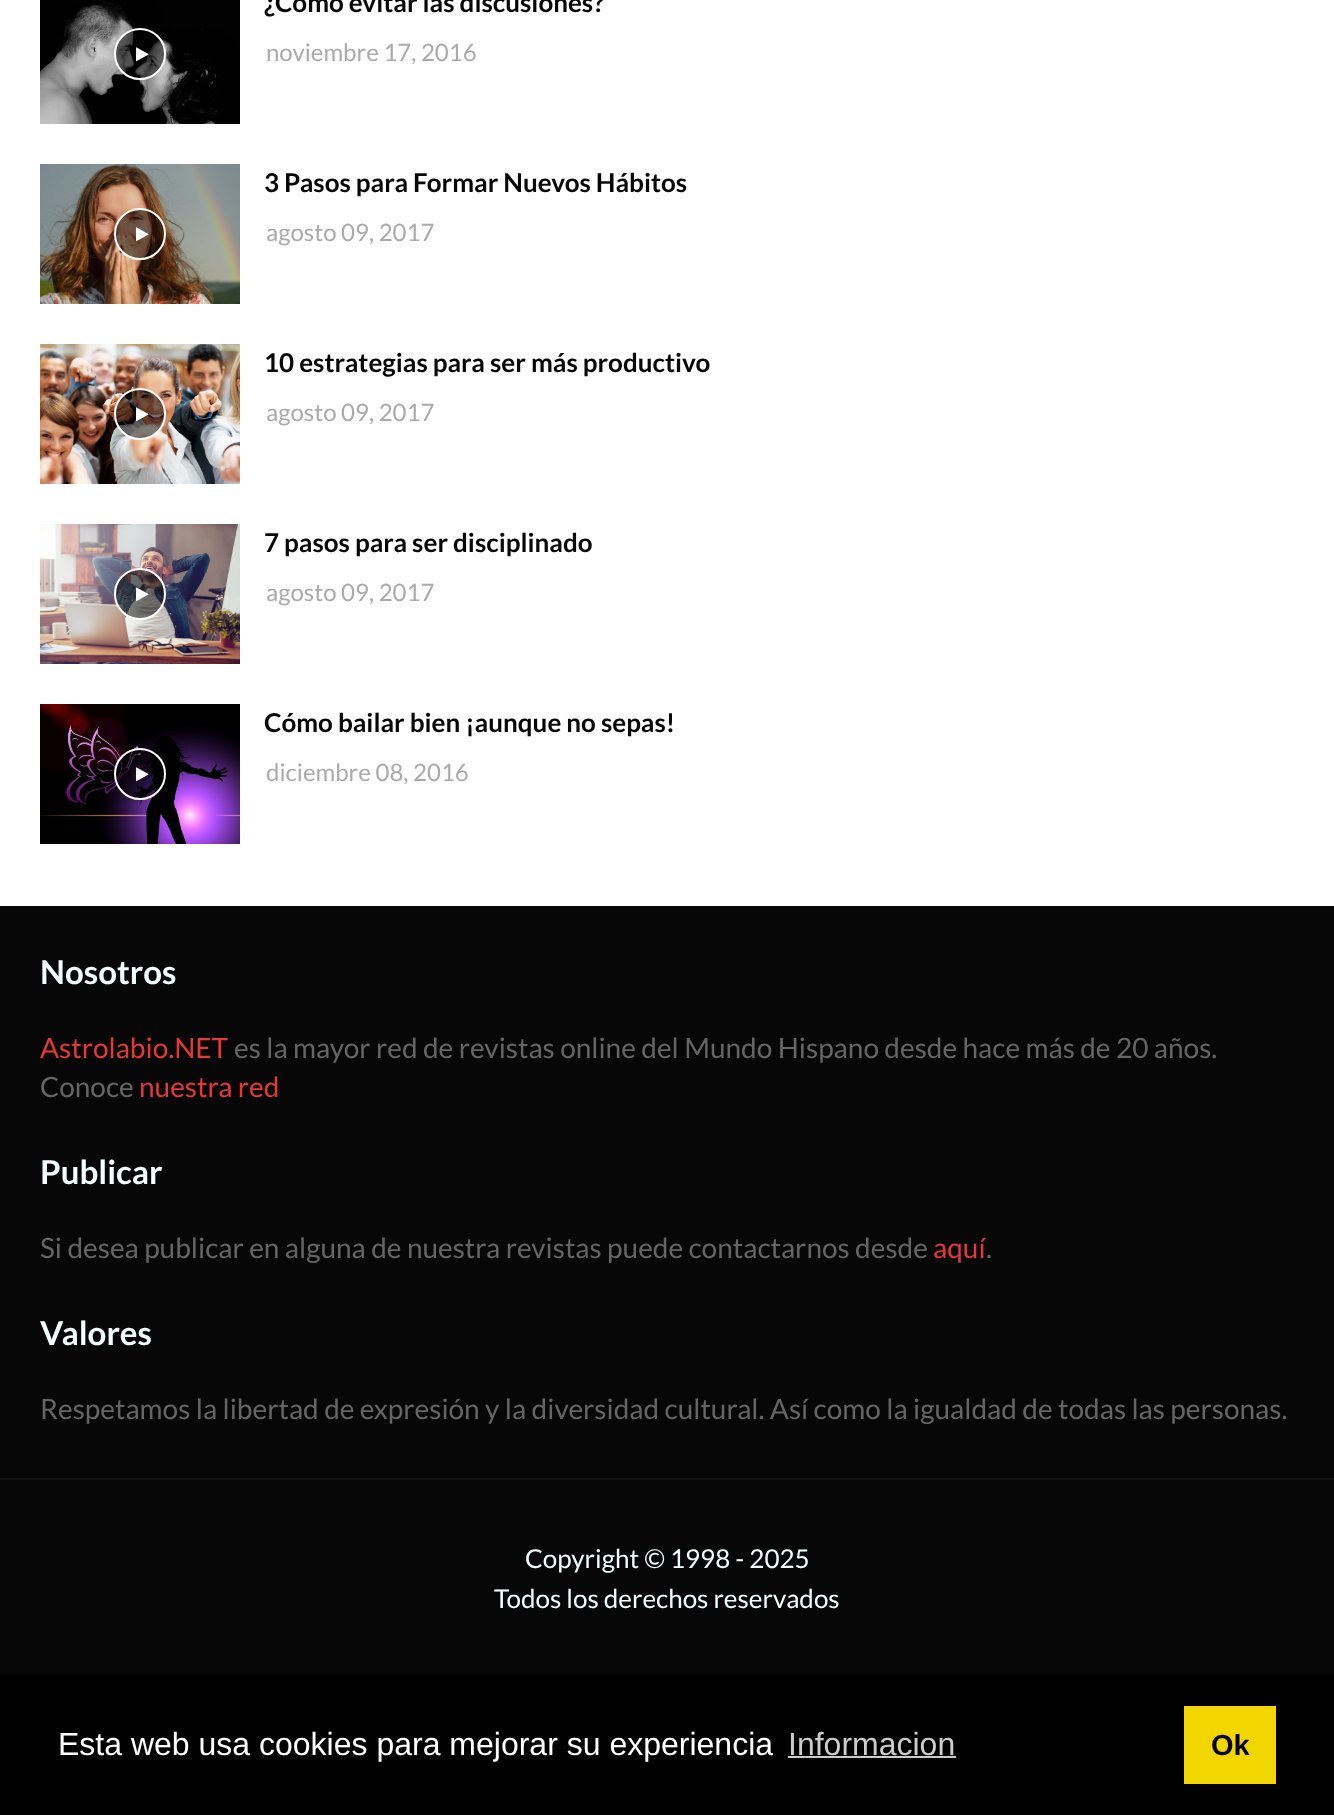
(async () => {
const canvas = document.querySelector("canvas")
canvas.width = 1334
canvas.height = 1815
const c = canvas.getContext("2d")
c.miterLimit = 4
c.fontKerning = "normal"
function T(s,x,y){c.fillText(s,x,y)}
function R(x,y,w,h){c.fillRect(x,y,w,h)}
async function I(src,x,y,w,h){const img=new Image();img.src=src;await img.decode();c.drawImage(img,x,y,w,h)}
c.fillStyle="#fff"
R(0,0,1334,1815)
await I("1.png",40,0,200,124)
c.fillStyle="#00000080"
c.beginPath()
c.arc(140,54,25,0,7)
c.fill()
c.strokeStyle="#fff"
c.lineWidth=2
c.stroke()
await I("2.png",136,47,13,15)
c.font="bold 26px Lato"
c.fillStyle="#070707"
T("¿Cómo evitar las discusiones?",264,12)
c.font="24px Lato"
c.fillStyle="#aaa"
T("noviembre 17, 2016",266,61)
await I("3.png",40,164,200,140)
c.fillStyle="#00000080"
c.beginPath()
c.arc(140,234,25,0,7)
c.fill()
c.stroke()
await I("4.png",136,227,13,15)
c.font="bold 26px Lato"
c.fillStyle="#070707"
T("3 Pasos para Formar Nuevos Hábitos",264,192)
c.font="24px Lato"
c.fillStyle="#aaa"
T("agosto 09, 2017",266,241)
await I("5.png",40,344,200,140)
c.fillStyle="#00000080"
c.beginPath()
c.arc(140,414,25,0,7)
c.fill()
c.stroke()
await I("6.png",136,407,13,15)
c.font="bold 26px Lato"
c.fillStyle="#070707"
T("10 estrategias para ser más productivo",264,372)
c.font="24px Lato"
c.fillStyle="#aaa"
T("agosto 09, 2017",266,421)
await I("7.png",40,524,200,140)
c.fillStyle="#00000080"
c.beginPath()
c.arc(140,594,25,0,7)
c.fill()
c.stroke()
await I("8.png",136,587,13,15)
c.font="bold 26px Lato"
c.fillStyle="#070707"
T("7 pasos para ser disciplinado",264,552)
c.font="24px Lato"
c.fillStyle="#aaa"
T("agosto 09, 2017",266,601)
await I("9.png",40,704,200,140)
c.fillStyle="#00000080"
c.beginPath()
c.arc(140,774,25,0,7)
c.fill()
c.stroke()
await I("10.png",136,767,13,15)
c.font="bold 26px Lato"
c.fillStyle="#070707"
T("Cómo bailar bien ¡aunque no sepas!",264,732)
c.font="24px Lato"
c.fillStyle="#aaa"
T("diciembre 08, 2016",266,781)
c.fillStyle="#070707"
R(0,906,1334,768)
c.font="bold 33px Lato"
c.fillStyle="#f1ffff"
T("Nosotros",40,984)
c.font="28px Lato"
c.fillStyle="#e73737"
T("Astrolabio.NET",40,1058)
c.fillStyle="#656565"
T("es la mayor red de revistas online del Mundo Hispano desde hace más de 20 años.",234,1058)
T("Conoce",40,1097)
c.fillStyle="#e73737"
T("nuestra red",139,1097)
c.font="bold 33px Lato"
c.fillStyle="#f1ffff"
T("Publicar",40,1184)
c.font="28px Lato"
c.fillStyle="#656565"
T("Si desea publicar en alguna de nuestra revistas puede contactarnos desde",40,1258)
c.fillStyle="#e73737"
T("aquí",933,1258)
c.fillStyle="#656565"
T(".",986,1258)
c.font="bold 33px Lato"
c.fillStyle="#f1ffff"
T("Valores",40,1345)
c.font="28px Lato"
c.fillStyle="#656565"
T("Respetamos la libertad de expresión y la diversidad cultural. Así como la igualdad de todas las personas.",40,1419)
c.fillStyle="#131313"
R(0,1478,1334,2)
c.font="26px Lato"
c.fillStyle="#f1ffff"
T("Copyright © 1998 - 2025",525,1568)
T("Todos los derechos reservados",494,1608)
c.fillStyle="#000"
R(0,1674,1334,141)
c.font="32px Liberation Sans"
c.fillStyle="#fff"
T("Esta web usa cookies para mejorar su experiencia",58,1755)
c.fillStyle="#ccc"
T("Informacion",788,1755)
R(788,1756,168,2)
c.fillStyle="#f1d600"
R(1184,1706,92,78)
c.font="bold 29px Liberation Sans"
c.fillStyle="#000"
T("Ok",1211,1755)
})()
